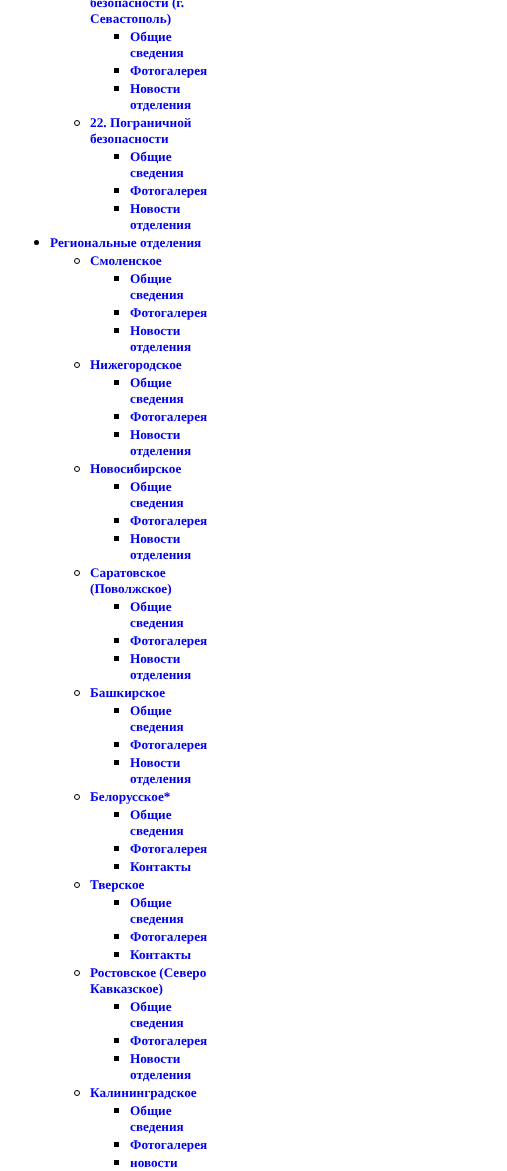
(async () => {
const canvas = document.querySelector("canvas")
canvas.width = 507
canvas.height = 1171
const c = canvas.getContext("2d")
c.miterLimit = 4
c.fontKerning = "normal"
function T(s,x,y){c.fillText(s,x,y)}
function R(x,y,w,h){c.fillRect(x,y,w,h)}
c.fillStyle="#fff"
R(0,0,507,1171)
c.font="bold 13.25px Liberation Serif"
c.fillStyle="#00e"
T("безопасности (г.",90,7)
T("Севастополь)",90,23)
c.fillStyle="#000"
R(114,34,5,5)
c.fillStyle="#00e"
T("Общие",130,41)
T("сведения",130,57)
c.fillStyle="#000"
R(114,68,5,5)
c.fillStyle="#00e"
T("Фотогалерея",130,75)
c.fillStyle="#000"
R(114,86,5,5)
c.fillStyle="#00e"
T("Новости",130,93)
T("отделения",130,109)
c.beginPath()
c.arc(77,123,2.5,0,7)
c.strokeStyle="#000"
c.stroke()
T("22. Пограничной",90,127)
T("безопасности",90,143)
c.fillStyle="#000"
R(114,154,5,5)
c.fillStyle="#00e"
T("Общие",130,161)
T("сведения",130,177)
c.fillStyle="#000"
R(114,188,5,5)
c.fillStyle="#00e"
T("Фотогалерея",130,195)
c.fillStyle="#000"
R(114,206,5,5)
c.fillStyle="#00e"
T("Новости",130,213)
T("отделения",130,229)
c.fillStyle="#000"
c.beginPath()
c.arc(36.5,242.5,2.5,0,7)
c.fill()
c.fillStyle="#00e"
T("Региональные отделения",50,247)
c.beginPath()
c.arc(77,261,2.5,0,7)
c.stroke()
T("Смоленское",90,265)
c.fillStyle="#000"
R(114,276,5,5)
c.fillStyle="#00e"
T("Общие",130,283)
T("сведения",130,299)
c.fillStyle="#000"
R(114,310,5,5)
c.fillStyle="#00e"
T("Фотогалерея",130,317)
c.fillStyle="#000"
R(114,328,5,5)
c.fillStyle="#00e"
T("Новости",130,335)
T("отделения",130,351)
c.beginPath()
c.arc(77,365,2.5,0,7)
c.stroke()
T("Нижегородское",90,369)
c.fillStyle="#000"
R(114,380,5,5)
c.fillStyle="#00e"
T("Общие",130,387)
T("сведения",130,403)
c.fillStyle="#000"
R(114,414,5,5)
c.fillStyle="#00e"
T("Фотогалерея",130,421)
c.fillStyle="#000"
R(114,432,5,5)
c.fillStyle="#00e"
T("Новости",130,439)
T("отделения",130,455)
c.beginPath()
c.arc(77,469,2.5,0,7)
c.stroke()
T("Новосибирское",90,473)
c.fillStyle="#000"
R(114,484,5,5)
c.fillStyle="#00e"
T("Общие",130,491)
T("сведения",130,507)
c.fillStyle="#000"
R(114,518,5,5)
c.fillStyle="#00e"
T("Фотогалерея",130,525)
c.fillStyle="#000"
R(114,536,5,5)
c.fillStyle="#00e"
T("Новости",130,543)
T("отделения",130,559)
c.beginPath()
c.arc(77,573,2.5,0,7)
c.stroke()
T("Саратовское",90,577)
T("(Поволжское)",90,593)
c.fillStyle="#000"
R(114,604,5,5)
c.fillStyle="#00e"
T("Общие",130,611)
T("сведения",130,627)
c.fillStyle="#000"
R(114,638,5,5)
c.fillStyle="#00e"
T("Фотогалерея",130,645)
c.fillStyle="#000"
R(114,656,5,5)
c.fillStyle="#00e"
T("Новости",130,663)
T("отделения",130,679)
c.beginPath()
c.arc(77,693,2.5,0,7)
c.stroke()
T("Башкирское",90,697)
c.fillStyle="#000"
R(114,708,5,5)
c.fillStyle="#00e"
T("Общие",130,715)
T("сведения",130,731)
c.fillStyle="#000"
R(114,742,5,5)
c.fillStyle="#00e"
T("Фотогалерея",130,749)
c.fillStyle="#000"
R(114,760,5,5)
c.fillStyle="#00e"
T("Новости",130,767)
T("отделения",130,783)
c.beginPath()
c.arc(77,797,2.5,0,7)
c.stroke()
T("Белорусское*",90,801)
c.fillStyle="#000"
R(114,812,5,5)
c.fillStyle="#00e"
T("Общие",130,819)
T("сведения",130,835)
c.fillStyle="#000"
R(114,846,5,5)
c.fillStyle="#00e"
T("Фотогалерея",130,853)
c.fillStyle="#000"
R(114,864,5,5)
c.fillStyle="#00e"
T("Контакты",130,871)
c.beginPath()
c.arc(77,885,2.5,0,7)
c.stroke()
T("Тверское",90,889)
c.fillStyle="#000"
R(114,900,5,5)
c.fillStyle="#00e"
T("Общие",130,907)
T("сведения",130,923)
c.fillStyle="#000"
R(114,934,5,5)
c.fillStyle="#00e"
T("Фотогалерея",130,941)
c.fillStyle="#000"
R(114,952,5,5)
c.fillStyle="#00e"
T("Контакты",130,959)
c.beginPath()
c.arc(77,973,2.5,0,7)
c.stroke()
T("Ростовское (Cеверо",90,977)
T("Кавказское)",90,993)
c.fillStyle="#000"
R(114,1004,5,5)
c.fillStyle="#00e"
T("Общие",130,1011)
T("сведения",130,1027)
c.fillStyle="#000"
R(114,1038,5,5)
c.fillStyle="#00e"
T("Фотогалерея",130,1045)
c.fillStyle="#000"
R(114,1056,5,5)
c.fillStyle="#00e"
T("Новости",130,1063)
T("отделения",130,1079)
c.beginPath()
c.arc(77,1093,2.5,0,7)
c.stroke()
T("Калининградское",90,1097)
c.fillStyle="#000"
R(114,1108,5,5)
c.fillStyle="#00e"
T("Общие",130,1115)
T("сведения",130,1131)
c.fillStyle="#000"
R(114,1142,5,5)
c.fillStyle="#00e"
T("Фотогалерея",130,1149)
c.fillStyle="#000"
R(114,1160,5,5)
c.fillStyle="#00e"
T("новости",130,1167)
})()
